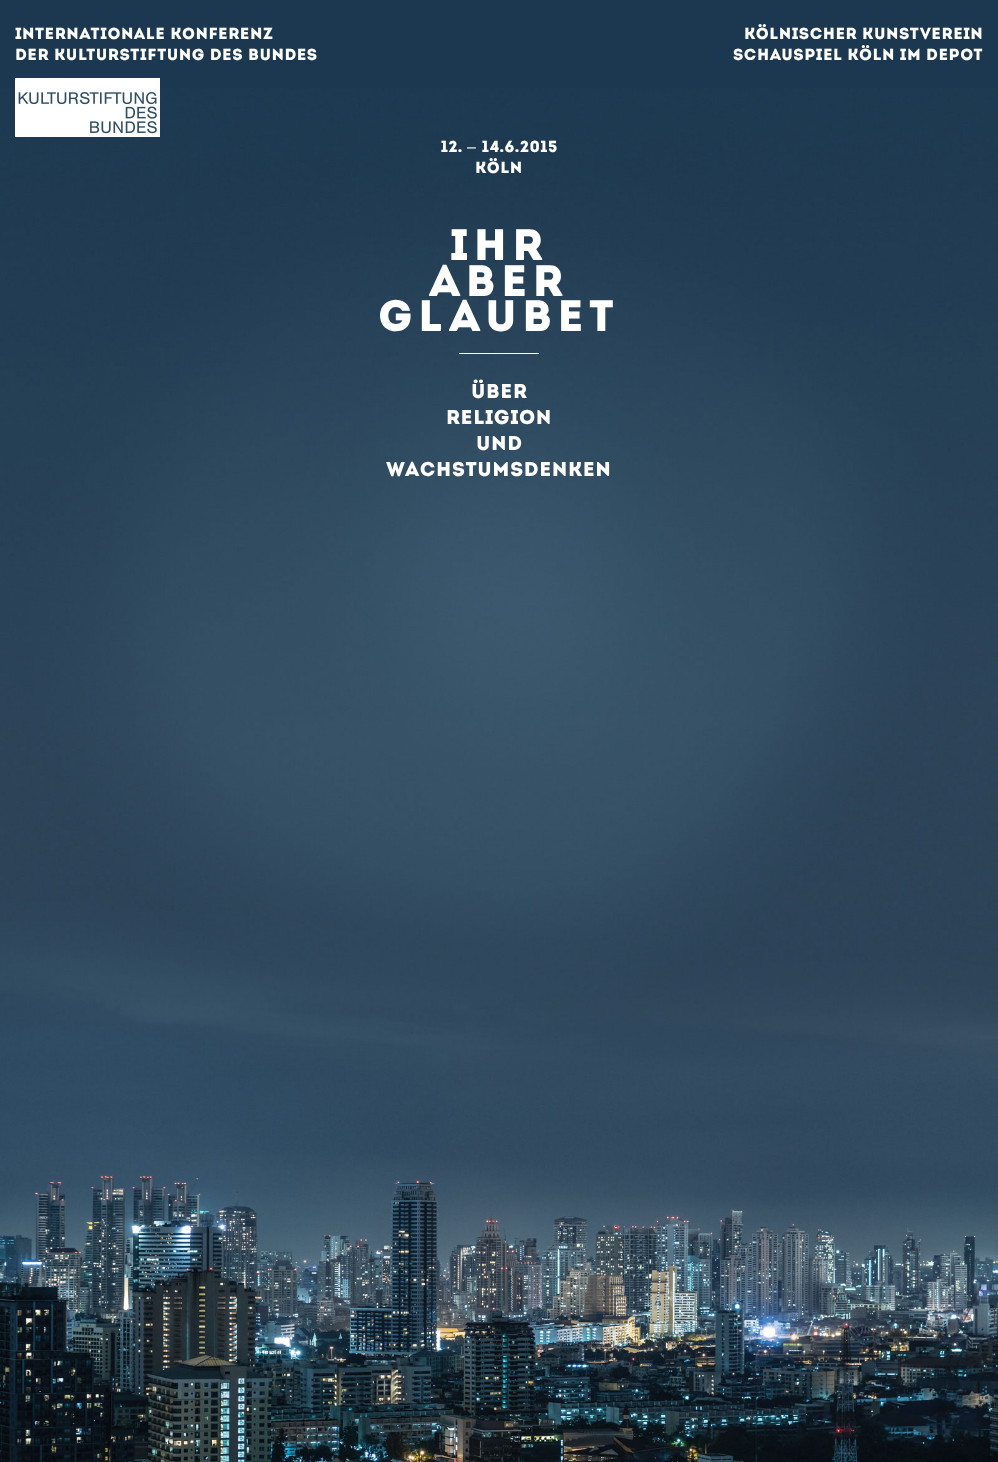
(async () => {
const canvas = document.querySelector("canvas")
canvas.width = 998
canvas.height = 1462
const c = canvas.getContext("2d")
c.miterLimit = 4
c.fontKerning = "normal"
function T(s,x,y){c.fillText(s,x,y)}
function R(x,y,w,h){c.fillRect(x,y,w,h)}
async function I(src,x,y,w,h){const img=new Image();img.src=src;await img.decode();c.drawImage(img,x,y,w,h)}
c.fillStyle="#1c3850"
R(0,0,998,1462)
await I("1.png",0,88,998,1374)
c.letterSpacing="0.5px"
c.font="16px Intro"
c.fillStyle="#fff"
T("Internationale Konferenz",15,39)
T("der Kulturstiftung des Bundes",15,60)
await I("2.png",15,78,145,59)
T("Kölnischer Kunstverein",744,39)
T("Schauspiel Köln im Depot",733,60)
T("12.",441,152)
c.font="16px Liberation Sans"
T("–",467,152)
c.font="16px Intro"
T("14.6.2015",482,152)
T("Köln",475,173)
c.letterSpacing="5.25px"
c.font="44px Intro"
T("Ihr",450,260)
T("aber",429,296)
T("glaubet",378,331)
R(459,353,80,1)
c.letterSpacing="0.6px"
c.font="20px Intro"
T("Über",471,398)
T("Religion",446,424)
T("und",476,450)
T("Wachstumsdenken",386,476)
})()
